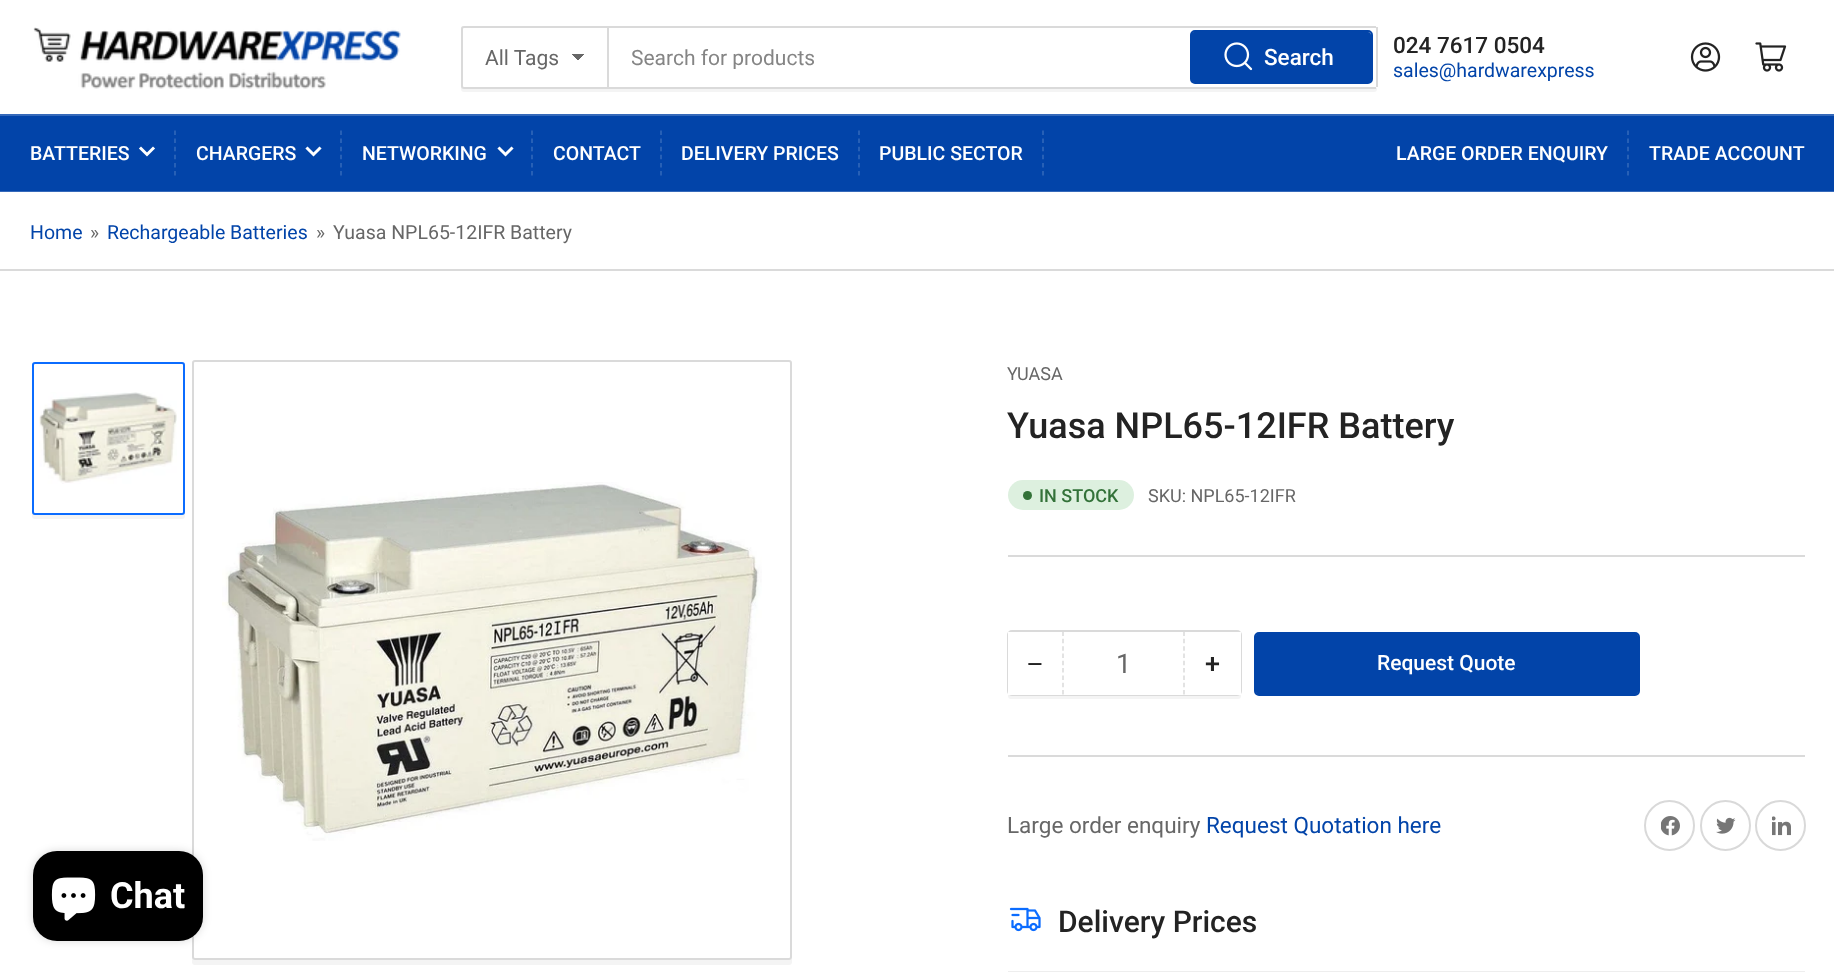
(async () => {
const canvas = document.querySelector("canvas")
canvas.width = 1834
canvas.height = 972
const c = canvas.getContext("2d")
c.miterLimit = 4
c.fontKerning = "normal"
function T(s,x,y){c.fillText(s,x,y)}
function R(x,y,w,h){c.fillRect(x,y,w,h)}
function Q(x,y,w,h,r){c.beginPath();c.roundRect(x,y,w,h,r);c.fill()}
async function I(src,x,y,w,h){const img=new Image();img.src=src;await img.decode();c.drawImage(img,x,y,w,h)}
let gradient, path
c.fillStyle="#fff"
R(0,0,1834,972)
await I("1.png",33,27,368,62)
c.beginPath()
c.roundRect(462,27,146,61,2)
c.strokeStyle="#dadada"
c.lineWidth=2
c.stroke()
c.fillStyle="#dadada4d"
path = new Path2D("M461 87v2c0 2 1 3 3 3h145v-4h-145c-2 0-2 0-3-1z")
c.fill(path)
c.fillStyle="#fff"
c.beginPath()
c.roundRect(461,26,148,63,[3,0,0,3])
c.fill()
gradient = c.createLinearGradient(578,53,585,61)
gradient.addColorStop(.5,"#676767")
gradient.addColorStop(.5,"#fff")
c.fillStyle = gradient
R(578,54,6,8)
gradient = c.createLinearGradient(570,61,578,53)
gradient.addColorStop(.5,"#fff")
gradient.addColorStop(.5,"#676767")
c.fillStyle = gradient
R(570,54,8,7)
c.beginPath()
c.roundRect(462,27,146,61,[2,0,0,2])
c.stroke()
c.font="21px Roboto"
c.fillStyle="#676767"
T("All Tags",485,65)
c.fillStyle="#f4f4f4"
path = new Path2D("M609 88v4h765c2 0 3-1 3-3v-3c0 1-1 2-3 2z")
c.fill(path)
c.fillStyle="#fff"
c.beginPath()
c.roundRect(609,26,768,63,[0,3,3,0])
c.fill()
c.fillStyle="#dadada"
R(609,26,767,2)
R(1376,27,2,60)
R(609,87,767,2)
c.save()
c.beginPath()
c.rect(632,45,721,24)
c.clip()
c.fillStyle="#858585"
T("Search for products",631,65)
c.restore()
c.beginPath()
c.roundRect(1191,31,181,52,4)
c.strokeStyle="#0244a9"
c.stroke()
c.fillStyle="#0244a9"
Q(1191,32,180,51,3)
await I("2.png",1224,42,29,29)
c.font="500 22.5px Roboto"
c.fillStyle="#fff"
T("Search",1264,65)
c.fillStyle="#232323"
T("024 7617 0504",1393,53)
c.font="19.5px Roboto"
c.fillStyle="#0244a9"
T("sales@hardwarexpress",1393,77)
await I("3.png",1690,42,31,30)
await I("4.png",1755,42,32,30)
R(0,116,1834,75)
c.fillStyle="#3569ba"
R(0,191,1834,1)
R(0,114,1834,2)
c.font="500 19.5px Roboto"
c.fillStyle="#fff"
T("BATTERIES",30,160)
path = new Path2D("M153 148.5l-6 6l-6-6")
c.strokeStyle="#fff"
c.lineWidth=3
c.lineCap="square"
c.stroke(path)
path = new Path2D("M175 130.5v45")
c.strokeStyle="#3569ba"
c.lineWidth=1.5
c.lineCap="butt"
c.setLineDash([4.5,3.6])
c.stroke(path)
T("CHARGERS",196,160)
path = new Path2D("M319.5 148.5l-6 6l-6-6")
c.strokeStyle="#fff"
c.lineWidth=3
c.lineCap="square"
c.setLineDash([])
c.stroke(path)
path = new Path2D("M341 130.5v45")
c.strokeStyle="#3569ba"
c.lineWidth=1.5
c.lineCap="butt"
c.setLineDash([4.5,3.6])
c.stroke(path)
T("NETWORKING",362,160)
path = new Path2D("M511.5 148.5l-6 6l-6-6")
c.strokeStyle="#fff"
c.lineWidth=3
c.lineCap="square"
c.setLineDash([])
c.stroke(path)
path = new Path2D("M532 130.5v45")
c.strokeStyle="#3569ba"
c.lineWidth=1.5
c.lineCap="butt"
c.setLineDash([4.5,3.6])
c.stroke(path)
T("CONTACT",553,160)
path = new Path2D("M661 130.5v45")
c.stroke(path)
T("DELIVERY PRICES",681,160)
path = new Path2D("M859 130.5v45")
c.stroke(path)
T("PUBLIC SECTOR",879,160)
path = new Path2D("M1043 130.5v45")
c.stroke(path)
T("LARGE ORDER ENQUIRY",1396,160)
path = new Path2D("M1628 130.5v45")
c.stroke(path)
T("TRADE ACCOUNT",1649,160)
c.fillStyle="#dadada"
R(0,269,1834,2)
c.font="19.5px Roboto"
c.fillStyle="#0244a9"
T("Home",30,239)
c.fillStyle="#676767"
T("»",90,239)
c.fillStyle="#0244a9"
T("Rechargeable Batteries",107,239)
c.fillStyle="#676767"
T("»",316,239)
T("Yuasa NPL65-12IFR Battery",333,239)
c.save()
c.beginPath()
c.rect(30,360,155,600)
c.clip()
c.fillStyle="#f4f4f4"
path = new Path2D("M32 513v3c0 2 1 3 3 3h147c2 0 3-1 3-3v-147l-1-2v120c0 3 5 27-2 27h-148z")
c.fill(path)
c.restore()
c.fillStyle="#fff"
c.beginPath()
c.roundRect(33,363,151,151,2)
c.fill()
c.strokeStyle="#0b6cff"
c.lineWidth=2
c.setLineDash([])
c.stroke()
await I("5.png",39,392,138,92)
c.fillStyle="#f4f4f4"
path = new Path2D("M192 957v5c0 2 1 3 3 3h594c2 0 3-1 3-3v-5c0 2-1 3-3 3h-594c-2 0-3-1-3-3z")
c.fill(path)
c.beginPath()
c.roundRect(193,361,598,598,2)
c.strokeStyle="#dadada"
c.stroke()
await I("6.png",222,482,540,359)
c.fillStyle="#dadada"
R(1008,555,797,2)
c.font="18px Roboto"
c.fillStyle="#676767"
T("YUASA",1007,380)
c.font="500 36px Roboto"
c.fillStyle="#232323"
T("Yuasa NPL65-12IFR Battery",1007,438)
c.fillStyle="#ddf0df"
Q(1008,480,126,30,15)
c.fillStyle="#337239"
c.beginPath()
c.arc(1027.5,495.5,4.5,0,7)
c.fill()
c.font="500 18px Roboto"
T("IN STOCK",1039,502)
c.font="18px Roboto"
c.fillStyle="#676767"
T("SKU: NPL65-12IFR",1148,502)
c.fillStyle="#f4f4f4"
path = new Path2D("M1008 692v4c0 2 1 3 3 3h227c2 0 3-1 3-3v-57l-1-2v55c0 1-1 2-2 2h-227c-2 0-3-1-3-2z")
c.fill(path)
c.beginPath()
c.roundRect(1008,631,233,64,4)
c.stroke()
c.fillStyle="#fff"
R(1062,694,123,1)
R(1008,632,54,63)
c.font="27px Liberation Sans"
c.fillStyle="#232323"
T("−",1027,673)
path = new Path2D("M1184 631.5v63")
c.lineWidth=1.5
c.setLineDash([4.5,2.82])
c.stroke(path)
path = new Path2D("M1063 631.5v63")
c.stroke(path)
c.font="27px Roboto"
c.fillStyle="#676767"
T("1",1116,673)
c.fillStyle="#fff"
R(1185,632,56,63)
c.font="500 27px Roboto"
c.fillStyle="#232323"
T("+",1205,673)
c.beginPath()
c.roundRect(1255,633,384,62,4)
c.strokeStyle="#0244a9"
c.lineWidth=2
c.setLineDash([])
c.stroke()
c.fillStyle="#0244a9"
Q(1256,633,382,62,3)
c.font="500 21px Roboto"
c.fillStyle="#fff"
T("Request Quote",1377,670)
c.fillStyle="#dadada"
R(1008,755,797,2)
c.font="22.5px Roboto"
c.fillStyle="#676767"
T("Large order enquiry",1007,833)
c.fillStyle="#0244a9"
T("Request Quotation here",1206,833)
c.beginPath()
c.arc(1669.5,825.5,24.5,0,7)
c.strokeStyle="#d9d9d9"
c.stroke()
await I("7.png",1661,816,19,20)
c.beginPath()
c.arc(1725.5,825.5,24.5,0,7)
c.stroke()
await I("8.png",1716,817,20,17)
c.beginPath()
c.arc(1780.5,825.5,24.5,0,7)
c.stroke()
await I("9.png",1772,816,19,20)
await I("10.png",1009,907,32,25)
c.font="500 30px Roboto"
c.fillStyle="#232323"
T("Delivery Prices",1058,932)
c.fillStyle="#eee"
R(1008,971,797,1)
c.fillStyle="#00000026"
c.filter="blur(4px)"
c.beginPath()
c.roundRect(33,851,170,90,24)
c.fill()
c.filter="none"
c.fillStyle="#000"
Q(33,851,170,90,24)
await I("11.png",51,877,45,44)
c.font="bold 36px Roboto"
c.fillStyle="#fff"
T("Chat",110,908)
})()
